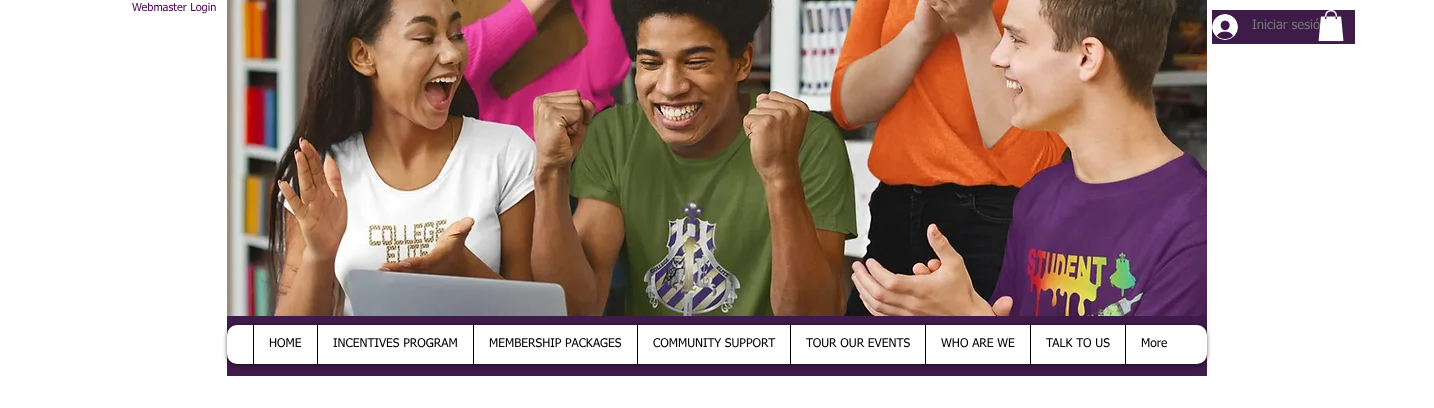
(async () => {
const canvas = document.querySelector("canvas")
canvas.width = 1434
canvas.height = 408
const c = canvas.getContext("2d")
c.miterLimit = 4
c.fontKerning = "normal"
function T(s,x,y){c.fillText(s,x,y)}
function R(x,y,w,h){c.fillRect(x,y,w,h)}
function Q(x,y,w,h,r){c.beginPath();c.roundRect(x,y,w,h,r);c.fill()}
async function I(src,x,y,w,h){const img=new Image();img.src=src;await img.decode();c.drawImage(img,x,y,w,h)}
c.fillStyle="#fff"
R(0,0,1434,408)
c.font="11px tahoma"
c.fillStyle="#4c0752"
T("Webmaster Login",132,11)
await I("1.png",227,0,980,316)
c.fillStyle="#3f1b49"
R(1212,10,143,34)
await I("2.png",1212,14,26,26)
c.font="13px tahoma"
c.fillStyle="#747575"
T("Iniciar sesió",1252,29)
await I("3.png",1318,10,26,32)
c.fillStyle="#3f1b49"
R(227,316,980,60)
c.fillStyle="#00000099"
c.filter="blur(2px)"
c.beginPath()
c.roundRect(227,326,980,39,10)
c.fill()
c.filter="none"
c.fillStyle="#fff"
Q(227,325,980,39,10)
c.fillStyle="#000"
R(253,325,1,39)
c.font="12px tahoma"
T("HOME",269,347)
R(317,325,1,39)
T("INCENTIVES PROGRAM",333,347)
R(473,325,1,39)
T("MEMBERSHIP PACKAGES",489,347)
R(637,325,1,39)
T("COMMUNITY SUPPORT",653,347)
R(790,325,1,39)
T("TOUR OUR EVENTS",806,347)
R(925,325,1,39)
T("WHO ARE WE",941,347)
R(1030,325,1,39)
T("TALK TO US",1046,347)
R(1125,325,1,39)
T("More",1141,347)
})()
